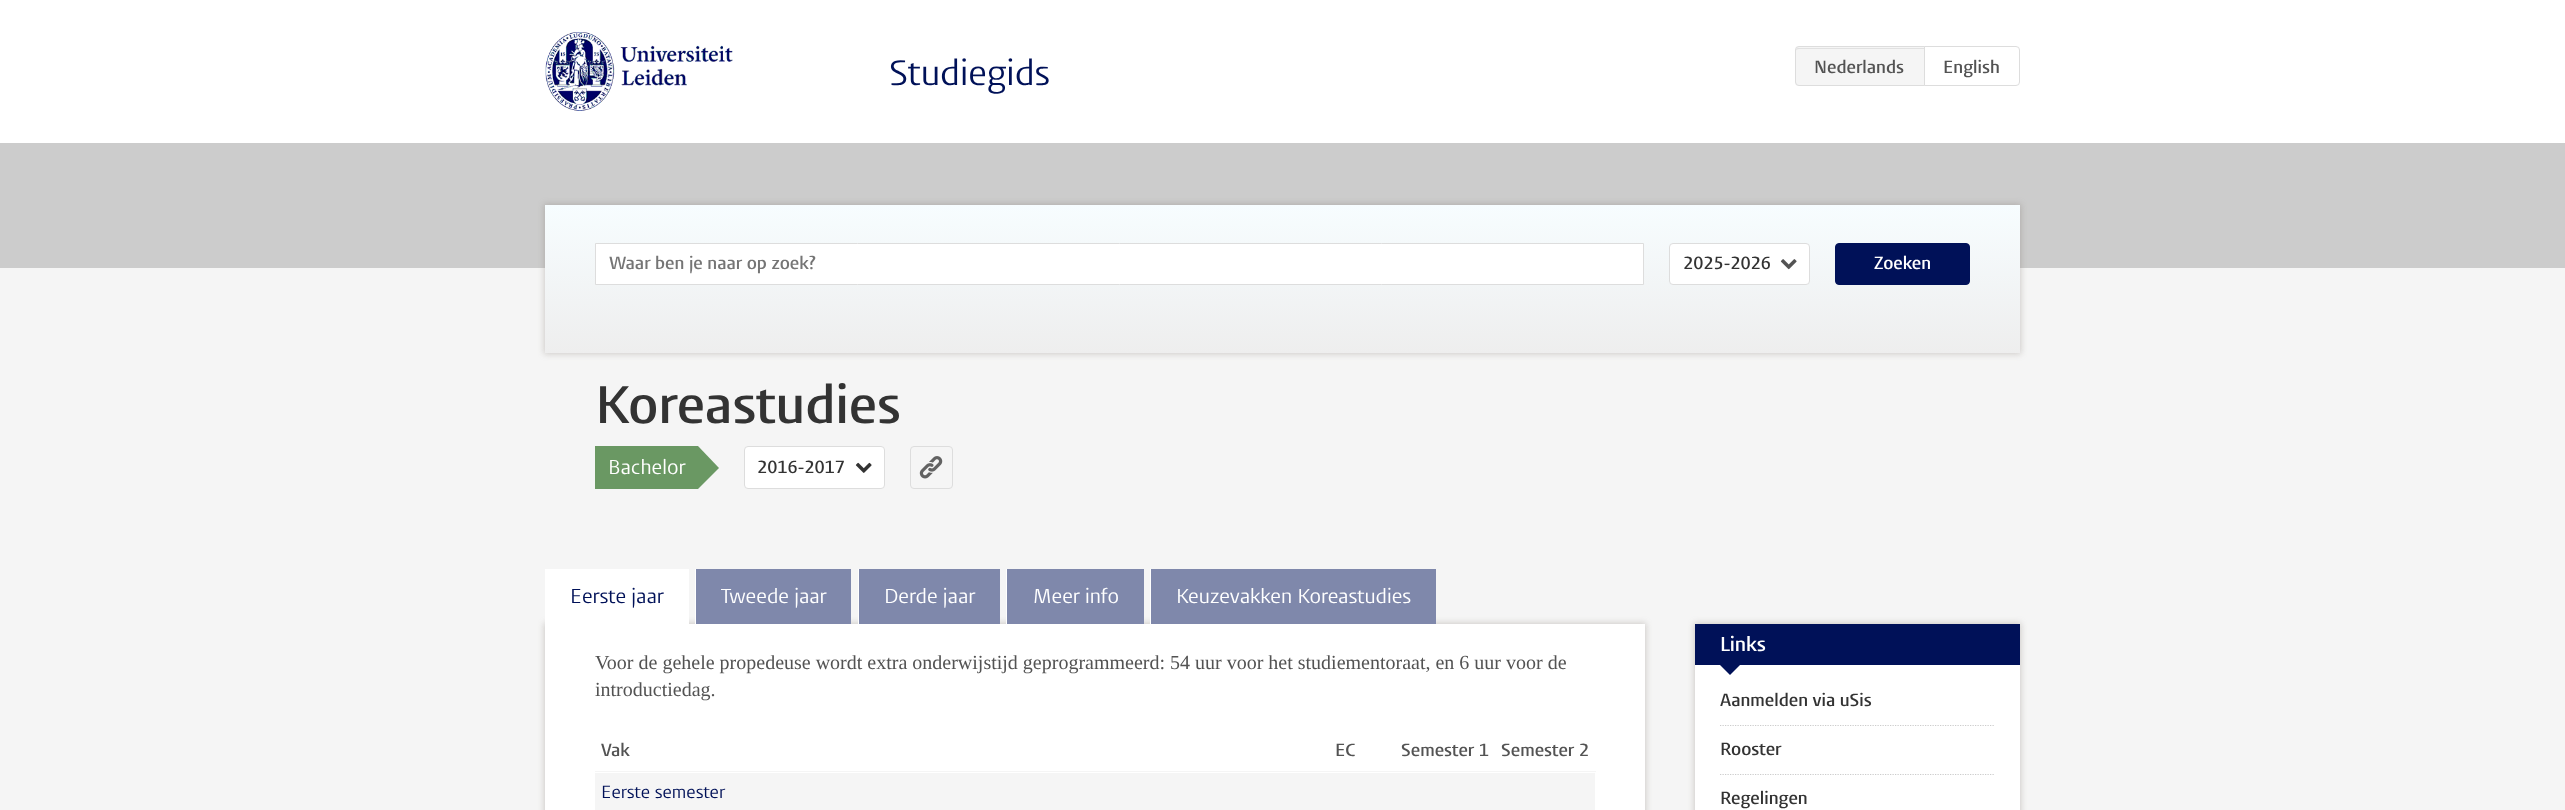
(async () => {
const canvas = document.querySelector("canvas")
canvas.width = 2565
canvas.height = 810
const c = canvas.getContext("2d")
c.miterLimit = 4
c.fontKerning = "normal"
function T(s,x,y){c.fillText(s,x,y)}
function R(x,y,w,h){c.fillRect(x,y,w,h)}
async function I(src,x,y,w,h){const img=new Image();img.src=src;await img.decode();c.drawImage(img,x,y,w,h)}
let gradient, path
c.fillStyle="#f5f5f5"
R(0,0,2565,810)
c.fillStyle="#fff"
R(0,0,2565,143)
await I("1.png",545,32,188,79)
c.font="35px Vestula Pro"
c.fillStyle="#001158"
T("Studiegids",889,85)
c.fillStyle="#f5f5f5"
c.beginPath()
c.roundRect(1795,46,130,40,[4,0,0,4])
c.fill()
c.fillStyle="#e1e1e1"
path = new Path2D("M1799 49h125v-1h-126c-1 0-2 1-2 3c0-1 1-2 3-2z")
c.fill(path)
c.beginPath()
c.roundRect(1795.5,46.5,129,39,[3.5,0,0,3.5])
c.strokeStyle="#ddd"
c.stroke()
c.font="600 17.5px Vestula Pro"
c.fillStyle="#535353"
T("Nederlands",1814,73)
c.fillStyle="#fff"
c.beginPath()
c.roundRect(1924.5,46.5,95,39,[0,3.5,3.5,0])
c.fill()
c.stroke()
c.fillStyle="#535353"
T("English",1943,73)
c.fillStyle="#ccc"
R(0,143,2565,125)
c.fillStyle="#786e644d"
c.filter="blur(3px)"
c.beginPath()
c.rect(544,204,1477,150)
c.fill()
c.filter="none"
gradient = c.createLinearGradient(1283,353,1283,205)
gradient.addColorStop(0,"#eee")
gradient.addColorStop(1,"#f7fdff")
c.fillStyle = gradient
R(545,205,1475,148)
c.fillStyle="#fff"
c.beginPath()
c.rect(595.5,243.5,1048,41)
c.fill()
c.stroke()
c.fillStyle="#757575"
T("Waar ben je naar op zoek?",609,269)
c.fillStyle="#fff"
c.beginPath()
c.roundRect(1669.5,243.5,140,41,3.5)
c.fill()
c.stroke()
c.fillStyle="#333"
T("2025-2026",1683,269)
await I("2.png",1780,259,17,11)
c.fillStyle="#001158"
c.beginPath()
c.roundRect(1835.5,243.5,134,41,3.5)
c.fill()
c.strokeStyle="#001158"
c.stroke()
c.fillStyle="#fff"
T("Zoeken",1874,269)
c.font="600 52.5px Vestula Pro"
c.fillStyle="#333"
T("Koreastudies",595,423)
c.fillStyle="#6a9863"
R(595,446,103,43)
c.font="20px Vestula Pro"
c.fillStyle="#fff"
T("Bachelor",608,474)
c.fillStyle="#6a9863"
path = new Path2D("M698 489v-43l21 22z")
c.fill(path)
c.fillStyle="#fff"
c.beginPath()
c.roundRect(744.5,446.5,140,42,3.5)
c.fill()
c.strokeStyle="#ddd"
c.stroke()
c.font="600 17.5px Vestula Pro"
c.fillStyle="#333"
T("2016-2017",757,473)
await I("3.png",855,462,17,11)
c.beginPath()
c.roundRect(910.5,446.5,42,42,3.5)
c.stroke()
await I("4.png",919,456,24,23)
c.fillStyle="#786e644d"
c.filter="blur(3px)"
c.beginPath()
c.rect(544,623,1102,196)
c.fill()
c.filter="none"
c.fillStyle="#fff"
R(545,624,1100,186)
R(545,569,144,55)
c.font="20px Vestula Pro"
c.fillStyle="#001158"
T("Eerste jaar",570,603)
c.fillStyle="#7f88ab"
R(696,569,155,55)
c.fillStyle="#fff"
R(695,569,1,55)
T("Tweede jaar",721,603)
c.fillStyle="#7f88ab"
R(859,569,141,55)
c.fillStyle="#fff"
R(858,569,1,55)
T("Derde jaar",884,603)
c.fillStyle="#7f88ab"
R(1007,569,137,55)
c.fillStyle="#fff"
R(1006,569,1,55)
T("Meer info",1033,603)
c.fillStyle="#7f88ab"
R(1151,569,285,55)
c.fillStyle="#fff"
R(1150,569,1,55)
T("Keuzevakken Koreastudies",1176,603)
c.font="20px Liberation Serif"
c.fillStyle="#535353"
T("Voor de gehele propedeuse wordt extra onderwijstijd geprogrammeerd: 54 uur voor het studiementoraat, en 6 uur voor de",595,669)
T("introductiedag.",595,696)
c.fillStyle="#f5f5f5"
R(595,771,1001,1)
c.font="600 17.5px Vestula Pro"
c.fillStyle="#535353"
T("Vak",601,756)
T("EC",1335,756)
T("Semester 1",1401,756)
T("Semester 2",1501,756)
c.fillStyle="#f5f5f5"
R(595,773,1000,37)
c.font="17.5px Vestula Pro"
c.fillStyle="#001158"
T("Eerste semester",601,798)
c.fillStyle="#786e644d"
c.filter="blur(3px)"
c.beginPath()
c.rect(1694,623,327,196)
c.fill()
c.filter="none"
c.fillStyle="#fff"
R(1695,665,325,145)
c.fillStyle="#001158"
R(1695,624,325,41)
c.font="600 20px Vestula Pro"
c.fillStyle="#fff"
T("Links",1720,651)
c.fillStyle="#001158"
path = new Path2D("M1720 665h20l-10 10z")
c.fill(path)
c.font="600 17.5px Vestula Pro"
c.fillStyle="#333"
T("Aanmelden via uSis",1720,706)
path = new Path2D("M1720 725.5h275")
c.strokeStyle="#ccc"
c.lineWidth=1.2
c.setLineDash([1.25,1.25])
c.stroke(path)
T("Rooster",1720,755)
path = new Path2D("M1720 774.5h275")
c.stroke(path)
T("Regelingen",1720,804)
})()
